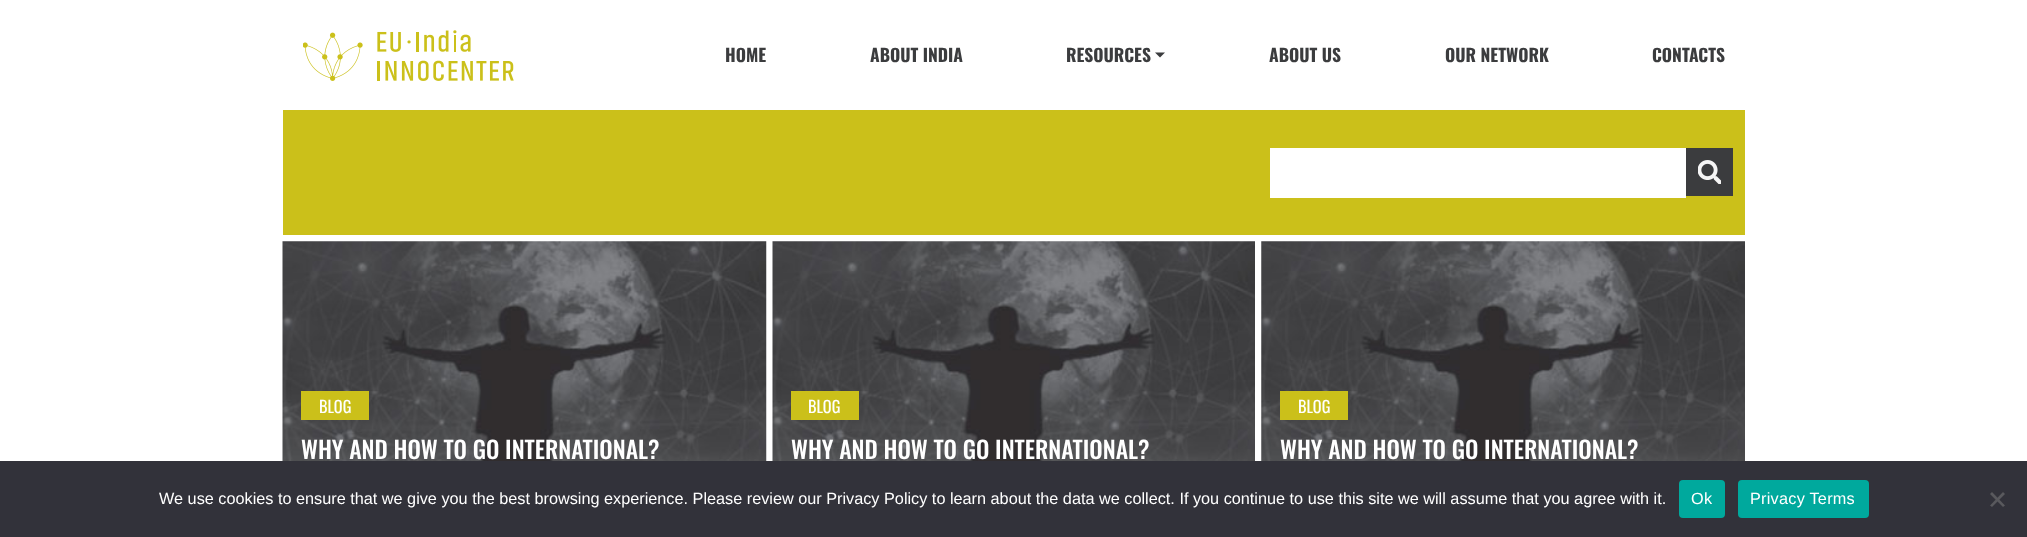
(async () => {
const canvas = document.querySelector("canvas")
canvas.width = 2027
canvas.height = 537
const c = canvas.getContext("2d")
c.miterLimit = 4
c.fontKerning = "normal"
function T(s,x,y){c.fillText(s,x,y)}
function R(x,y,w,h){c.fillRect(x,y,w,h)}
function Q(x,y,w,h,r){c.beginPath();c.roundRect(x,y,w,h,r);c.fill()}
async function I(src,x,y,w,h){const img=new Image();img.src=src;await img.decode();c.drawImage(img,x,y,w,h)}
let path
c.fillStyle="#fff"
R(0,0,2027,537)
await I("1.png",303,30,211,51)
c.font="bold 17.5px Oswald"
c.fillStyle="#3b3c3e"
T("HOME",725,62)
T("ABOUT INDIA",870,62)
T("RESOURCES",1066,62)
path = new Path2D("M1155 52.5h10l-5 5z")
c.fill(path)
T("ABOUT US",1269,62)
T("OUR NETWORK",1445,62)
T("CONTACTS",1652,62)
c.fillStyle="#cbc01a"
R(283,110,1462,125)
c.fillStyle="#fff"
R(1270,148,416,50)
c.fillStyle="#3b3c3e"
R(1686,148,47,48)
await I("2.png",1698,160,23,24)
await I("3.png",282,241,485,220)
c.fillStyle="#cbc01a"
R(301,391,68,29)
c.font="16.25px Oswald"
c.fillStyle="#fff"
T("BLOG",319,413)
c.font="500 23.75px Oswald"
T("WHY AND HOW TO GO INTERNATIONAL?",301,459)
await I("4.png",772,241,483,220)
c.fillStyle="#cbc01a"
R(791,391,68,29)
c.font="16.25px Oswald"
c.fillStyle="#fff"
T("BLOG",808,413)
c.font="500 23.75px Oswald"
T("WHY AND HOW TO GO INTERNATIONAL?",791,459)
await I("5.png",1261,241,484,220)
c.fillStyle="#cbc01a"
R(1280,391,68,29)
c.font="16.25px Oswald"
c.fillStyle="#fff"
T("BLOG",1298,413)
c.font="500 23.75px Oswald"
T("WHY AND HOW TO GO INTERNATIONAL?",1280,459)
c.fillStyle="#32323a"
R(0,461,2027,76)
c.font="16.25px Liberation Sans"
c.fillStyle="#fff"
T("We use cookies to ensure that we give you the best browsing experience. Please review our Privacy Policy to learn about the data we collect. If you continue to use this site we will assume that you agree with it.",159,504)
c.fillStyle="#00a99d"
Q(1679,480,46,38,4)
c.letterSpacing="0.25px"
c.fillStyle="#fff"
T("Ok",1691,504)
c.fillStyle="#00a99d"
Q(1738,480,131,38,4)
c.fillStyle="#fff"
T("Privacy Terms",1750,504)
c.fillStyle="#59595d"
path = new Path2D("M2003 492l2 2l-13 13l-2-1.5z")
c.fill(path)
path = new Path2D("M1990 494l2-2l13 13.5l-2 1.5z")
c.fill(path)
})()
